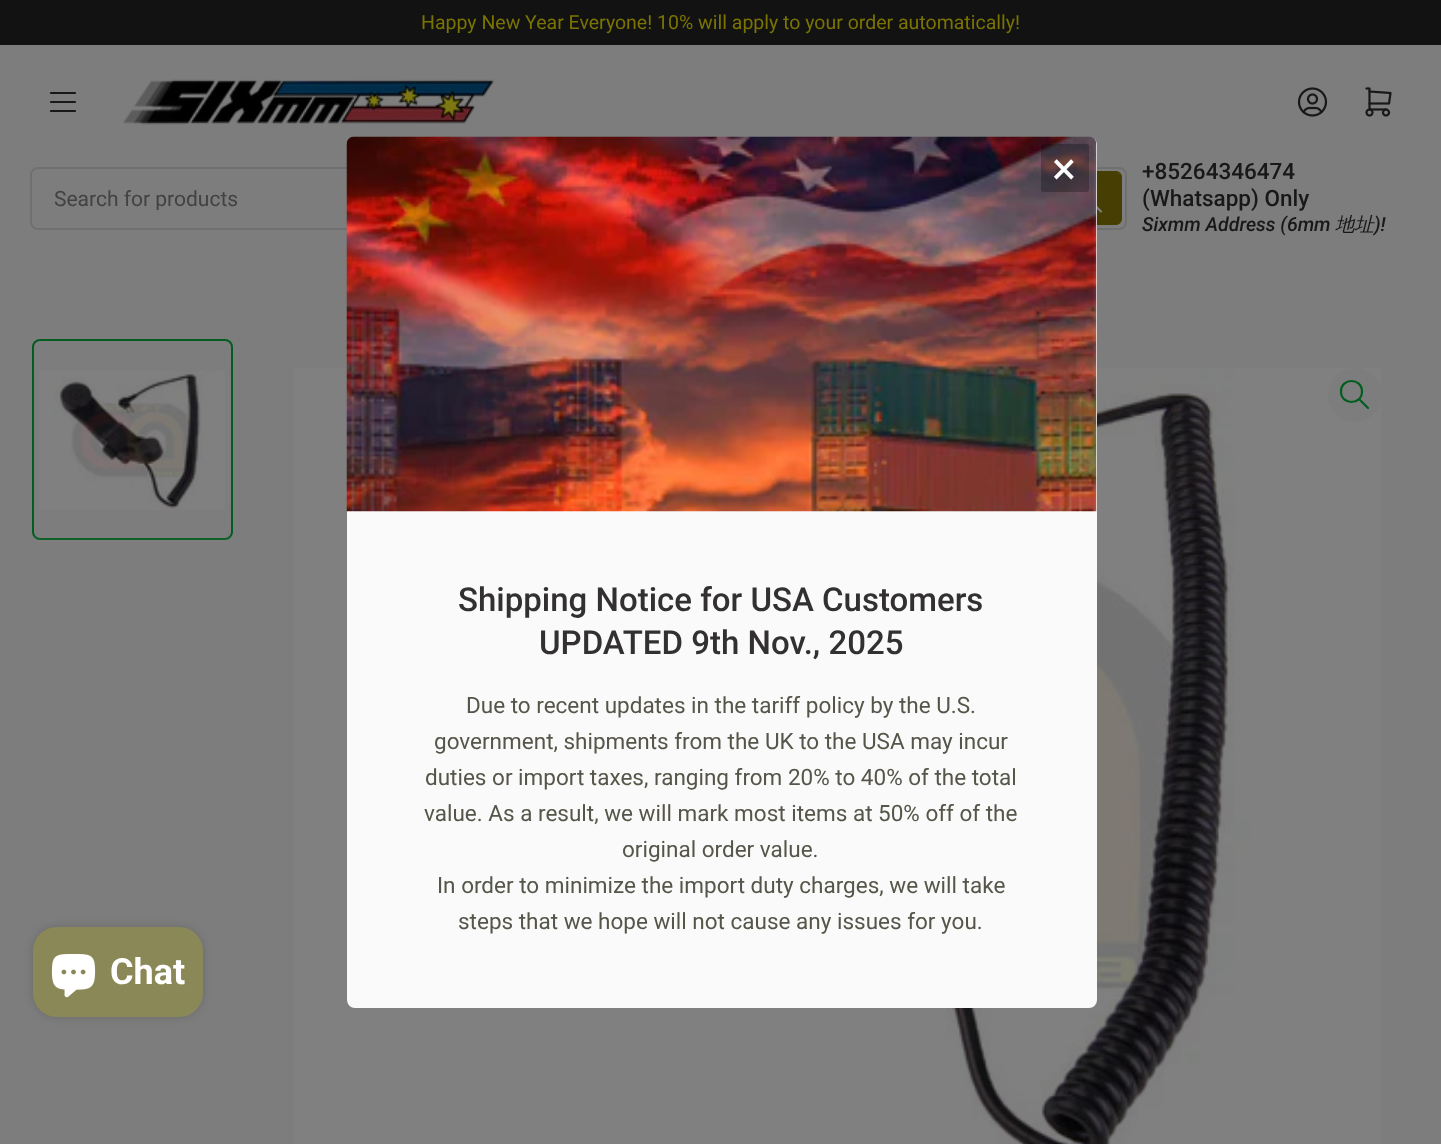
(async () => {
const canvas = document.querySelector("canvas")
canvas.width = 1441
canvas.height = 1144
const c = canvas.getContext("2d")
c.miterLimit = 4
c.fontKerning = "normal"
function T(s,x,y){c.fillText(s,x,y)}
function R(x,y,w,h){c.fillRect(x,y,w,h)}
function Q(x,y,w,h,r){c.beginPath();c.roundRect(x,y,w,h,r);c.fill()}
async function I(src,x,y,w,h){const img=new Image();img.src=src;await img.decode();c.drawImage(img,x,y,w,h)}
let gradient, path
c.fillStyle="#7d7d7d"
R(0,0,1441,1144)
c.fillStyle="#121212"
R(0,0,1441,45)
c.font="19.5px Roboto"
c.fillStyle="#7b7400"
T("Happy New Year Everyone! 10% will apply to your order automatically!",421,29)
c.beginPath()
c.roundRect(31,168,1095,61,7)
c.strokeStyle="#707070"
c.lineWidth=2
c.stroke()
c.beginPath()
c.roundRect(1054,172,67,52,5)
c.strokeStyle="#473e03"
c.stroke()
c.fillStyle="#473e03"
Q(1055,173,66,51,5)
path = new Path2D("M1101 211.5l-9-9")
c.strokeStyle="#7d7d7d"
c.lineWidth=2.2
c.lineCap="round"
c.lineJoin="round"
c.stroke(path)
await I("6.png",294,368,1087,776)
c.fillStyle="#fafafa"
Q(347,137,750,871,8)
await I("1.png",346,136,751,376)
c.fillStyle="#00000040"
Q(1041,144,48,48,3)
c.font="45px Roboto"
c.fillStyle="#fff"
T("×",1052,184)
c.font="500 33px Roboto"
c.fillStyle="#323030"
T("Shipping Notice for USA Customers",458,611)
T("UPDATED 9th Nov., 2025",539,654)
c.font="22.5px Roboto"
c.fillStyle="#565549"
T("Due to recent updates in the tariff policy by the U.S.",466,713)
T("government, shipments from the UK to the USA may incur",434,749)
T("duties or import taxes, ranging from 20% to 40% of the total",425,785)
T("value. As a result, we will mark most items at 50% off of the",424,821)
T("original order value.",622,857)
T("In order to minimize the import duty charges, we will take",437,893)
T("steps that we hope will not cause any issues for you.",458,929)
path = new Path2D("M51 93h24m-24 9h24m-24 9h24")
c.strokeStyle="#191818"
c.stroke(path)
await I("2.png",123,79,371,46)
await I("3.png",1297,87,31,30)
await I("4.png",1365,87,27,30)
c.save()
c.beginPath()
c.rect(54,186,1049,24)
c.clip()
c.font="21px Roboto"
c.fillStyle="#424242"
T("Search for products",54,206)
c.restore()
c.font="500 22.5px Roboto"
c.fillStyle="#191818"
T("+85264346474",1142,179)
T("(Whatsapp) Only",1142,206)
c.font="italic 500 19.5px Roboto"
T("Sixmm Address (6mm",1142,231)
c.font="italic 500 19.5px WenQuanYi Zen Hei"
T("地址",1335,231)
c.font="italic 500 19.5px Roboto"
T(")!",1374,231)
c.beginPath()
c.roundRect(33,340,199,199,7)
c.strokeStyle="#035d20"
c.lineWidth=2
c.lineJoin="miter"
c.stroke()
await I("5.png",39,371,186,139)
gradient = c.createLinearGradient(132,587,132,534)
gradient.addColorStop(0,"#7d7d7d")
gradient.addColorStop(1,"#7d7d7d00")
c.fillStyle = gradient
R(33,535,199,5)
c.fillStyle="#7d7d7d"
c.beginPath()
c.arc(1355,395,27,0,7)
c.fill()
path = new Path2D("M1341 391.5c0 14 21 14 21 0c0-14-21-14-21 0m27 16.5l-9-9")
c.lineWidth=2.2
c.lineJoin="round"
c.stroke(path)
c.fillStyle="#00000026"
c.filter="blur(4px)"
c.beginPath()
c.roundRect(33,927,170,90,24)
c.fill()
c.filter="none"
c.fillStyle="#8b8858"
Q(33,927,170,90,24)
await I("7.png",51,954,45,44)
c.font="bold 36px Roboto"
c.fillStyle="#fff"
T("Chat",110,984)
})()
